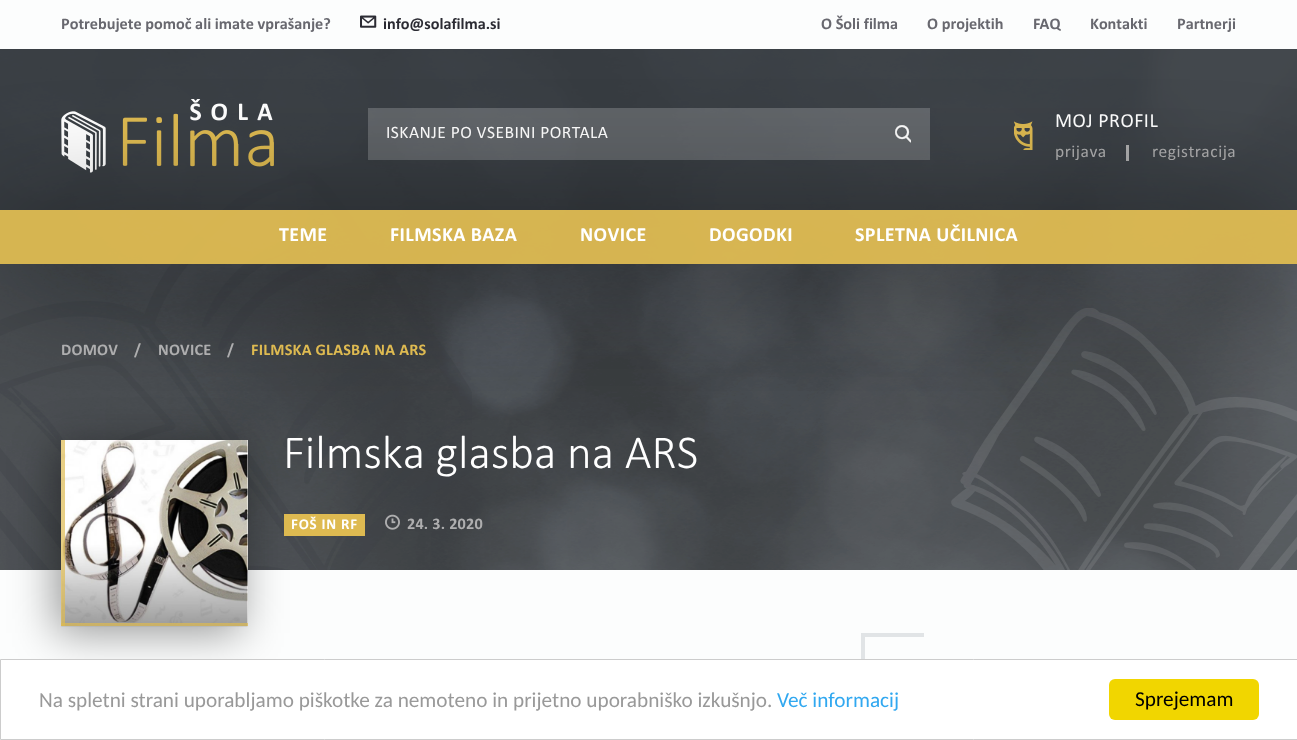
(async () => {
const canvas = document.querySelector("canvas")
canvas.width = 1297
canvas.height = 740
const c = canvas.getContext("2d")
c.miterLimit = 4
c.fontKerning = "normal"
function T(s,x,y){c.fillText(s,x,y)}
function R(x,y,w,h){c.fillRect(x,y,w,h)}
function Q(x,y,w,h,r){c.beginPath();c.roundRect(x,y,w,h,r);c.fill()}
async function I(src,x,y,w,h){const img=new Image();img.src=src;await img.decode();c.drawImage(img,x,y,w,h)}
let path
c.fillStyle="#fcfdfd"
R(0,0,1297,740)
c.font="bold 16.25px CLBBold"
c.fillStyle="#68686f"
T("Potrebujete pomoč ali imate vprašanje?",61,29)
await I("1.png",360,15,17,13)
c.fillStyle="#2b2b33"
T("info@solafilma.si",383,29)
c.fillStyle="#68686f"
T("O Šoli filma",821,29)
T("O projektih",927,29)
T("FAQ",1033,29)
T("Kontakti",1090,29)
T("Partnerji",1177,29)
await I("5.png",0,49,1297,521)
await I("6.png",0,170,472,400)
c.fillStyle="#353a3fcc"
R(0,49,1297,161)
await I("2.png",61,99,213,74)
c.fillStyle="#ffffff33"
R(368,108,562,52)
c.letterSpacing="0.45px"
c.font="17.5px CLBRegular"
c.fillStyle="#fff"
T("ISKANJE PO VSEBINI PORTALA",386,138)
await I("3.png",895,125,16,18)
await I("4.png",1014,121,19,29)
c.letterSpacing="0.5px"
c.font="20px CLBRegular"
T("MOJ PROFIL",1055,127)
c.font="17.5px CLBRegular"
c.fillStyle="#aeaeaf"
T("prijava",1055,157)
R(1126,145,3,16)
T("registracija",1152,157)
await I("7.png",951,308,346,262)
c.fillStyle="#deba51"
R(284,514,81,22)
c.fillStyle="#00000066"
c.filter="blur(22px)"
c.beginPath()
c.rect(55,446,186,187)
c.fill()
c.filter="none"
c.fillStyle="#fff"
R(61,440,187,186)
await I("8.png",61,440,187,187)
c.fillStyle="#deba51b3"
R(61,623,187,3)
R(61,440,4,186)
c.save()
path = new Path2D("M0 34h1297v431h-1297zm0 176h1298v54h-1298z")
c.clip(path,"evenodd")
c.fillStyle="#00000099"
c.filter="blur(62.5px)"
c.beginPath()
c.rect(-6,223,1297,53)
c.fill()
c.filter="none"
c.restore()
c.fillStyle="#deba51f2"
R(0,210,1297,54)
c.letterSpacing="0.4px"
c.font="bold 20px CLBBold"
c.fillStyle="#fff"
T("TEME",279,241)
T("FILMSKA BAZA",390,241)
T("NOVICE",580,241)
T("DOGODKI",709,241)
T("SPLETNA UČILNICA",855,241)
c.letterSpacing="0.2px"
c.font="bold 16.25px CLBBold"
c.fillStyle="#aeaeaf"
T("DOMOV",61,355)
T("/",134,355)
T("NOVICE",158,355)
T("/",227,355)
c.fillStyle="#deba51"
T("FILMSKA GLASBA NA ARS",251,355)
c.letterSpacing="0px"
c.font="300 47.5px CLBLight"
c.fillStyle="#fff"
T("Filmska glasba na ARS",283,468)
c.letterSpacing="0.75px"
c.font="bold 15px CLBBold"
T("FOŠ IN RF",291,529)
await I("9.png",385,514,15,16)
c.letterSpacing="0.2px"
c.font="bold 16.25px CLBBold"
c.fillStyle="#aeaeaf"
T("24. 3. 2020",407,529)
c.fillStyle="#e1e4e6"
R(861,633,63,4)
R(861,633,4,26)
c.fillStyle="#fff"
c.beginPath()
c.rect(.5,659.5,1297,80)
c.fill()
c.strokeStyle="#ccc"
c.stroke()
c.letterSpacing="0px"
c.font="21.25px Carlito"
c.fillStyle="#999"
T("Na spletni strani uporabljamo piškotke za nemoteno in prijetno uporabniško izkušnjo.",39,707)
c.fillStyle="#31a8f0"
T("Več informacij",777,707)
c.fillStyle="#f1d600"
Q(1109,679,150,41,6)
c.fillStyle="#000"
T("Sprejemam",1135,706)
})()
